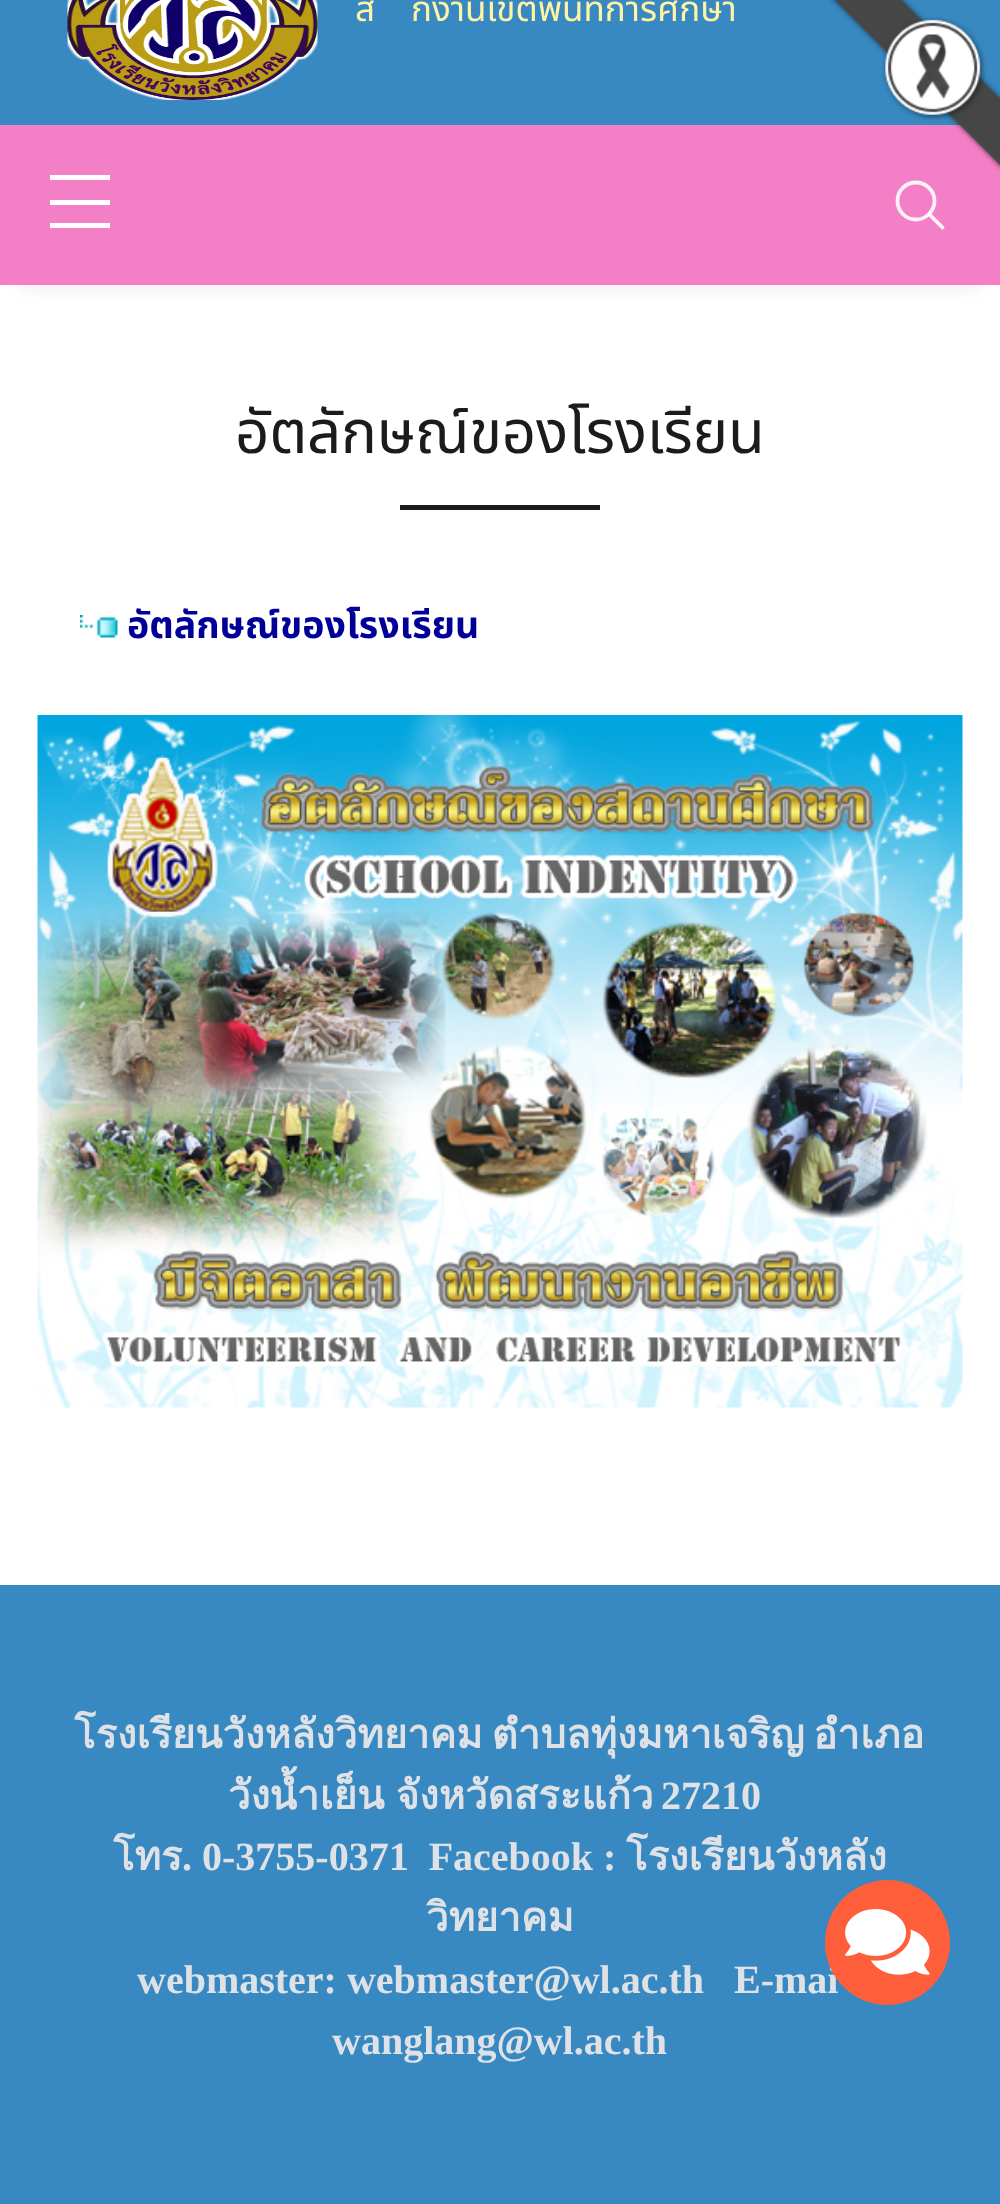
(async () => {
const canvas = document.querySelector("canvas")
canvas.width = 1000
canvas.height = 2204
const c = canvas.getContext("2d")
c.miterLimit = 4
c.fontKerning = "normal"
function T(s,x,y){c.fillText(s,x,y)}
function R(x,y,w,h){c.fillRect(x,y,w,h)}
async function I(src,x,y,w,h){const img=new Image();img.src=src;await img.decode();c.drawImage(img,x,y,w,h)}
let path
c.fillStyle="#fff"
R(0,0,1000,2204)
c.fillStyle="#3889c1"
R(0,0,1000,125)
await I("1.png",67,0,251,100)
c.font="35px Noto Sans Thai"
c.fillStyle="#fff3a4"
T("ส",355,21)
T("กงานเขตพื้นที่การศึกษา",411,21)
c.fillStyle="#0000001a"
c.filter="blur(10px)"
c.beginPath()
c.rect(20,165,960,120)
c.fill()
c.filter="none"
c.fillStyle="#f37fc6"
R(0,125,1000,160)
await I("2.png",829,0,171,172)
c.fillStyle="#fff"
R(50,175,60,5)
R(50,200,60,5)
R(50,223,60,5)
path = new Path2D("M916 182.5c-10.5 0-18.5 8-18.5 18.5c0 10 8 18.5 18.5 18.5c10 0 18.5-8.5 18.5-18.5c0-10.5-8.5-18.5-18.5-18.5z")
c.strokeStyle="#fef2f9"
c.lineWidth=3.8
c.stroke(path)
path = new Path2D("M929.5 214.5l13 13")
c.strokeStyle="#ffffffe6"
c.lineCap="round"
c.stroke(path)
c.letterSpacing="-0.25px"
c.font="60px Noto Sans Thai"
c.fillStyle="#1b1b1b"
T("อัตลักษณ์ของโรงเรียน",235,453)
R(400,505,200,5)
await I("3.png",80,615,38,23)
c.letterSpacing="0px"
c.font="bold 37.5px Noto Sans Thai"
c.fillStyle="#009"
T("อัตลักษณ์ของโรงเรียน",127,638)
await I("4.png",37,715,926,693)
c.fillStyle="#3889c1"
R(0,1585,1000,619)
c.wordSpacing="-4px"
c.font="bold 40px Loma"
c.fillStyle="#dee2e6"
T("โรงเรียนวังหลังวิทยาคม ตำบลทุ่งมหาเจริญ อำเภอ",74,1748)
c.wordSpacing="-2px"
T("วังน้ำเย็น จังหวัดสระแก้ว",228,1809)
c.wordSpacing="0px"
c.font="bold 40px Liberation Serif"
T("27210",661,1809)
c.font="bold 40px Loma"
T("โทร",113,1870)
c.font="bold 40px Liberation Serif"
T(". 0-3755-0371  Facebook :",182,1870)
c.font="bold 40px Loma"
T("โรงเรียนวังหลัง",626,1870)
T("วิทยาคม",426,1931)
c.font="bold 40px Liberation Serif"
T("webmaster: webmaster@wl.ac.th   E-mai",137,1993)
T("wanglang@wl.ac.th",332,2054)
c.fillStyle="#ff5e3a"
c.beginPath()
c.arc(887.5,1942.5,62.5,0,7)
c.fill()
await I("5.png",845,1909,85,66)
})()
